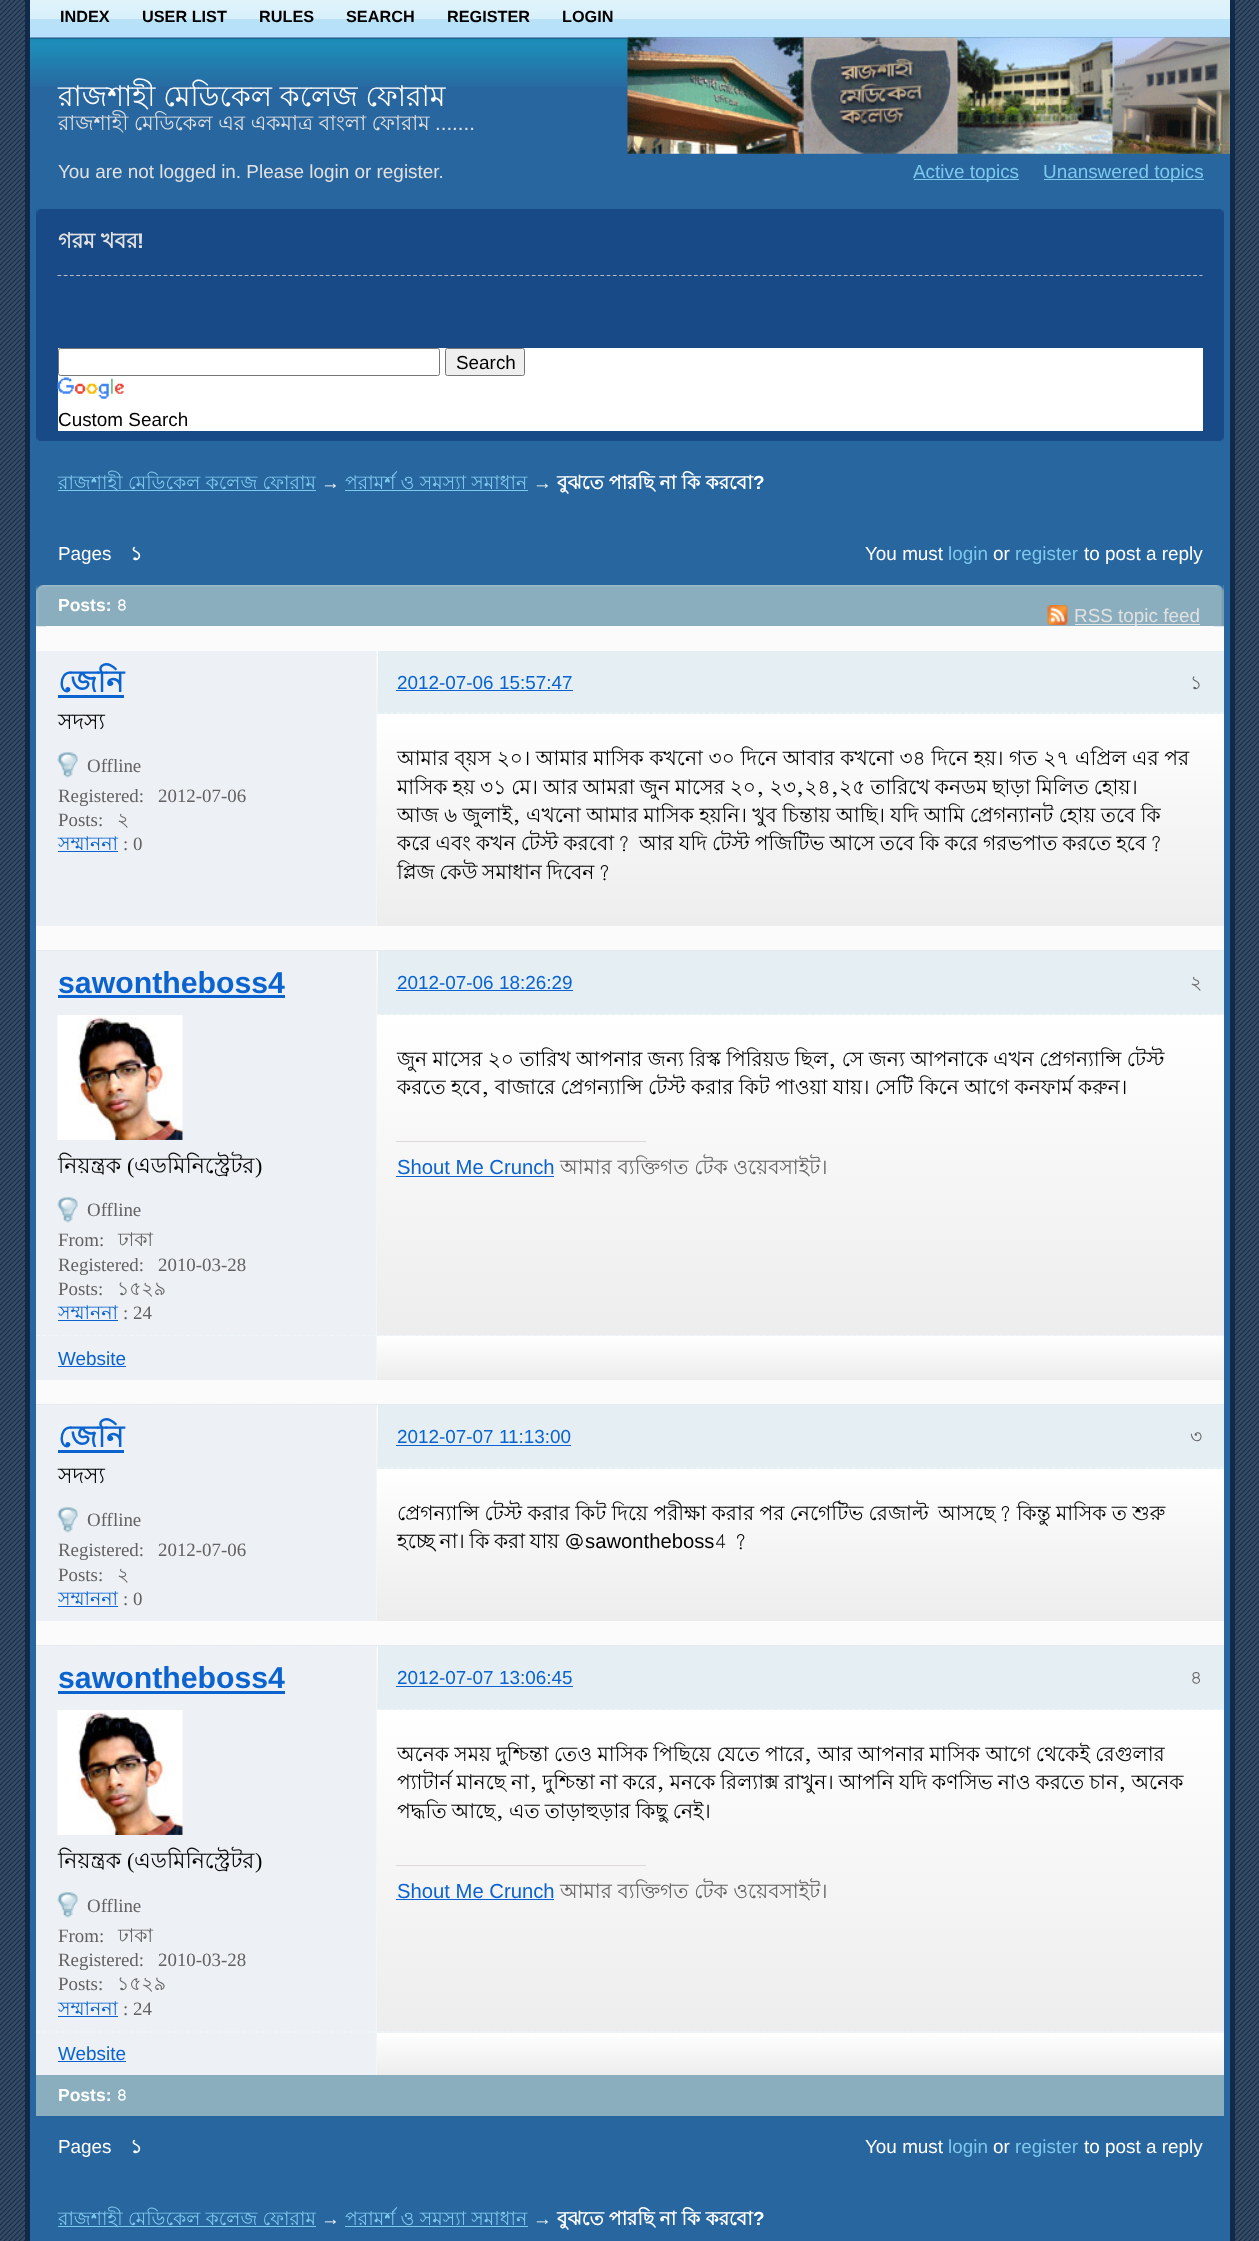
(async () => {
const canvas = document.querySelector("canvas")
canvas.width = 1259
canvas.height = 2241
const c = canvas.getContext("2d")
c.miterLimit = 4
c.fontKerning = "normal"
function T(s,x,y){c.fillText(s,x,y)}
function R(x,y,w,h){c.fillRect(x,y,w,h)}
async function I(src,x,y,w,h){const img=new Image();img.src=src;await img.decode();c.drawImage(img,x,y,w,h)}
let gradient, path
c.fillStyle="#fff"
R(0,0,1259,2241)
await I("1.png",0,0,1259,2241)
c.fillStyle="#112a49"
R(1230,0,5,2241)
R(25,0,5,2241)
c.fillStyle="#28669f"
R(30,87,1200,2154)
gradient = c.createLinearGradient(30,0,30,38)
gradient.addColorStop(0,"#e0f3fa")
gradient.addColorStop(.5,"#d8f0fc")
gradient.addColorStop(.51,"#b8e2f6")
gradient.addColorStop(1,"#b6dffd")
c.fillStyle = gradient
R(30,0,1200,38)
c.font="bold 16.25px Liberation Sans"
c.fillStyle="#010101"
T("INDEX",60,22)
T("USER LIST",142,22)
T("RULES",259,22)
T("SEARCH",346,22)
T("REGISTER",447,22)
T("LOGIN",562,22)
await I("2.png",30,37,1200,50)
await I("3.png",627,37,603,117)
c.font="28.4px Lohit Bengali"
c.fillStyle="#fff"
T("রাজশাহী মেডিকেল কলেজ ফোরাম",58,106)
c.font="20.5px Lohit Bengali"
c.fillStyle="#e1e1e1"
T("রাজশাহী মেডিকেল এর একমাত্র বাংলা ফোরাম",58,130)
c.font="20.5px Liberation Sans"
T(".......",435,130)
c.font="18.9px Liberation Sans"
T("You are not logged in. Please login or register.",58,178)
c.fillStyle="#7dc8ed"
R(914,179,105,1)
T("Active topics",913,178)
R(1044,179,160,1)
T("Unanswered topics",1043,178)
c.fillStyle="#184a87"
R(36,209,1188,232)
await I("4.png",36,208,5,5)
await I("5.png",1219,208,5,5)
await I("6.png",36,437,5,5)
await I("7.png",1219,437,5,5)
path = new Path2D("M57.5 275.5h1145")
c.strokeStyle="#bbb"
c.lineWidth=1.2
c.setLineDash([3.75,2.49])
c.stroke(path)
c.font="bold 21px Lohit Bengali"
c.fillStyle="#e1e1e1"
T("গরম খবর",58,248)
c.font="bold 21px Liberation Sans"
T("!",137,248)
c.fillStyle="#fff"
R(58,348,1145,83)
c.beginPath()
c.roundRect(58.5,348.5,381,27,2)
c.strokeStyle="#767676"
c.lineWidth=1
c.setLineDash([])
c.stroke()
c.fillStyle="#efefef"
c.beginPath()
c.roundRect(445.5,348.5,79,27,2)
c.fill()
c.stroke()
c.font="18.9px Liberation Sans"
c.fillStyle="#010101"
T("Search",456,369)
await I("8.png",57,377,67,22)
T("Custom Search",58,426)
c.fillStyle="#7dc8ed"
R(58,490,258,1)
c.font="18.9px Lohit Bengali"
T("রাজশাহী মেডিকেল কলেজ ফোরাম",58,489)
c.font="18.9px Liberation Sans"
c.fillStyle="#fff"
T("→",321,489)
c.fillStyle="#7dc8ed"
R(345,490,183,1)
c.font="18.9px Lohit Bengali"
T("পরামর্শ ও সমস্যা সমাধান",345,489)
c.font="18.9px Liberation Sans"
c.fillStyle="#fff"
T("→",533,489)
c.font="bold 18.9px Lohit Bengali"
T("বুঝতে পারছি না কি করবো",557,489)
c.font="bold 18.9px Liberation Sans"
T("?",753,489)
c.font="18.9px Liberation Sans"
T("Pages",58,560)
c.font="bold 18.9px Lohit Bengali"
T("১",130,560)
c.font="18.9px Liberation Sans"
T("You must",865,560)
c.fillStyle="#7dc8ed"
T("login",948,560)
c.fillStyle="#fff"
T("or",993,560)
c.fillStyle="#7dc8ed"
T("register",1015,560)
c.fillStyle="#fff"
T("to post a reply",1084,560)
c.fillStyle="#8baebf"
R(36,585,1188,41)
await I("9.png",36,585,1188,2)
c.fillStyle="#fbfbfb"
R(36,626,1188,1019)
await I("10.png",1213,585,11,42)
await I("11.png",36,585,11,42)
c.font="bold 17.5px Liberation Sans"
c.fillStyle="#fff"
T("Posts:",58,611)
c.font="bold 17.5px Lohit Bengali"
T("৪",116,611)
await I("12.png",1047,605,21,20)
c.fillStyle="#e4e4e4"
R(1075,624,125,1)
c.font="18.9px Liberation Sans"
c.fillStyle="#e1e1e1"
T("RSS topic feed",1074,622)
c.fillStyle="#edf1f5"
R(36,651,340,275)
gradient = c.createLinearGradient(378,651,378,714)
gradient.addColorStop(0,"#fff")
gradient.addColorStop(.47,"#f6f6f6")
gradient.addColorStop(1,"#ededed")
c.fillStyle = gradient
R(377,651,1,63)
c.fillStyle="#eff7fa"
R(376,651,1,275)
c.fillStyle="#e5eff3"
R(378,651,846,63)
path = new Path2D("M377.5 713h846.5")
c.strokeStyle="#eff7fa"
c.lineWidth=1.2
c.setLineDash([3.75,2.49])
c.stroke(path)
c.font="bold 30.25px Lohit Bengali"
c.fillStyle="#0b63d0"
T("জেনি",58,692)
R(58,695,66,3)
c.font="18.9px Liberation Sans"
T("2012-07-06 15:57:47",397,689)
R(396,690,177,1)
c.font="18.9px Lohit Bengali"
c.fillStyle="#636161"
T("১",1190,689)
gradient = c.createLinearGradient(378,714,378,926)
gradient.addColorStop(0,"#fff")
gradient.addColorStop(.47,"#f6f6f6")
gradient.addColorStop(1,"#ededed")
c.fillStyle = gradient
R(377,714,847,212)
c.font="22px Lohit Bengali"
c.fillStyle="#010101"
T("সদস্য",58,729)
await I("13.png",57,752,21,26)
c.font="18.9px Liberation Serif"
c.fillStyle="#636161"
T("Offline",87,772)
T("Registered:",58,802)
T("2012-07-06",158,802)
T("Posts:",58,826)
c.font="18.9px Lohit Bengali"
T("২",117,826)
c.fillStyle="#0b63d0"
T("সম্মাননা",58,850)
R(58,851,60,1)
c.font="18.9px Liberation Serif"
c.fillStyle="#636161"
T(": 0",123,850)
c.font="20.25px Lohit Bengali"
c.fillStyle="#010101"
T("আমার ব্য়স ২০। আমার মাসিক কখনো ৩০ দিনে আবার কখনো ৩৪ দিনে হয়। গত ২৭ এপ্রিল এর পর",397,765)
c.wordSpacing="-0.6px"
T("মাসিক হয় ৩১ মে। আর আমরা জুন মাসের ২০, ২৩,২৪,২৫ তারিখে কনডম ছাড়া মিলিত হোয়।",397,794)
c.wordSpacing="-0.25px"
T("আজ ৬ জুলাই, এখনো আমার মাসিক হয়নি। খুব চিন্তায় আছি। যদি আমি প্রেগন্যানট হোয় তবে কি",397,822)
c.wordSpacing="-0.5px"
T("করে এবং কখন টেস্ট করবো?",397,850)
T("আর যদি টেস্ট পজিটিভ আসে তবে কি করে গরভপাত করতে হবে?",639,850)
c.wordSpacing="-1px"
T("প্লিজ কেউ সমাধান দিবেন?",397,879)
c.fillStyle="#edf1f5"
R(36,950,1188,430)
path = new Path2D("M36 950.5h1188")
c.strokeStyle="#dde4eb"
c.setLineDash([1.25,1.25])
c.stroke(path)
gradient = c.createLinearGradient(378,951,378,1015)
gradient.addColorStop(0,"#fff")
gradient.addColorStop(.47,"#f6f6f6")
gradient.addColorStop(1,"#ededed")
c.fillStyle = gradient
R(377,951,1,64)
c.fillStyle="#eff7fa"
R(376,951,1,384)
c.fillStyle="#e5eff3"
R(378,951,846,64)
path = new Path2D("M377.5 1014.5h846.5")
c.strokeStyle="#eff7fa"
c.setLineDash([3.75,2.49])
c.stroke(path)
c.wordSpacing="0px"
c.font="bold 30.25px Liberation Sans"
c.fillStyle="#0b63d0"
T("sawontheboss4",58,993)
R(58,995,227,3)
c.font="18.9px Liberation Sans"
T("2012-07-06 18:26:29",397,989)
R(396,990,177,1)
c.font="18.9px Lohit Bengali"
c.fillStyle="#636161"
T("২",1190,989)
gradient = c.createLinearGradient(378,1015,378,1335)
gradient.addColorStop(0,"#fff")
gradient.addColorStop(.47,"#f6f6f6")
gradient.addColorStop(1,"#ededed")
c.fillStyle = gradient
R(377,1015,847,320)
c.save()
c.beginPath()
c.rect(396,1025,799,176)
c.clip()
c.wordSpacing="-0.25px"
c.font="20.25px Lohit Bengali"
c.fillStyle="#010101"
T("জুন মাসের ২০ তারিখ আপনার জন্য রিস্ক পিরিয়ড ছিল, সে জন্য আপনাকে এখন প্রেগন্যান্সি টেস্ট",397,1066)
c.restore()
c.wordSpacing="-0.25px"
c.font="20.25px Lohit Bengali"
c.fillStyle="#010101"
T("করতে হবে, বাজারে প্রেগন্যান্সি টেস্ট করার কিট পাওয়া যায়। সেটি কিনে আগে কনফার্ম করুন।",397,1094)
c.fillStyle="#dcd8d8"
R(396,1141,250,1)
c.wordSpacing="0px"
c.font="20.25px Liberation Sans"
c.fillStyle="#0b63d0"
T("Shout Me Crunch",397,1174)
R(396,1176,158,1)
c.font="20.25px Lohit Bengali"
c.fillStyle="#636161"
T("আমার ব্যক্তিগত টেক ওয়েবসাইট।",560,1174)
await I("14.png",57,1015,126,125)
c.font="22px Lohit Bengali"
c.fillStyle="#010101"
T("নিয়ন্ত্রক",58,1173)
c.font="22px Liberation Serif"
T("(",127,1173)
c.font="22px Lohit Bengali"
T("এডমিনিস্ট্রেটর",134,1173)
c.font="22px Liberation Serif"
T(")",255,1173)
await I("13.png",57,1197,21,26)
c.font="18.9px Liberation Serif"
c.fillStyle="#636161"
T("Offline",87,1216)
T("From:",58,1246)
c.font="18.9px Lohit Bengali"
T("ঢাকা",118,1246)
c.font="18.9px Liberation Serif"
T("Registered:",58,1271)
T("2010-03-28",158,1271)
T("Posts:",58,1295)
c.font="18.9px Lohit Bengali"
T("১৫২৯",117,1295)
c.fillStyle="#0b63d0"
T("সম্মাননা",58,1319)
R(58,1320,60,1)
c.font="18.9px Liberation Serif"
c.fillStyle="#636161"
T(": 24",123,1319)
path = new Path2D("M36 1335.5h1188")
c.setLineDash([3.75,2.51])
c.stroke(path)
gradient = c.createLinearGradient(378,1336,378,1380)
gradient.addColorStop(0,"#fff")
gradient.addColorStop(.47,"#f6f6f6")
gradient.addColorStop(1,"#ededed")
c.fillStyle = gradient
R(377,1336,847,44)
c.fillStyle="#eff7fa"
R(376,1336,1,44)
c.font="18.9px Liberation Sans"
c.fillStyle="#0b63d0"
T("Website",58,1365)
R(58,1366,68,1)
c.fillStyle="#edf1f5"
R(36,1404,1188,217)
path = new Path2D("M36 1404.5h1188")
c.strokeStyle="#dde4eb"
c.setLineDash([1.25,1.25])
c.stroke(path)
gradient = c.createLinearGradient(378,1405,378,1469)
gradient.addColorStop(0,"#fff")
gradient.addColorStop(.47,"#f6f6f6")
gradient.addColorStop(1,"#ededed")
c.fillStyle = gradient
R(377,1405,1,64)
c.fillStyle="#eff7fa"
R(376,1405,1,216)
c.fillStyle="#e5eff3"
R(378,1405,846,64)
path = new Path2D("M377.5 1468h846.5")
c.strokeStyle="#eff7fa"
c.setLineDash([3.75,2.49])
c.stroke(path)
c.font="bold 30.25px Lohit Bengali"
c.fillStyle="#0b63d0"
T("জেনি",58,1447)
R(58,1450,66,3)
c.font="18.9px Liberation Sans"
T("2012-07-07 11:13:00",397,1443)
R(396,1445,175,1)
c.font="18.9px Lohit Bengali"
c.fillStyle="#636161"
T("৩",1190,1443)
gradient = c.createLinearGradient(378,1469,378,1621)
gradient.addColorStop(0,"#fff")
gradient.addColorStop(.47,"#f6f6f6")
gradient.addColorStop(1,"#ededed")
c.fillStyle = gradient
R(377,1469,847,152)
c.font="22px Lohit Bengali"
c.fillStyle="#010101"
T("সদস্য",58,1483)
await I("13.png",57,1507,21,26)
c.font="18.9px Liberation Serif"
c.fillStyle="#636161"
T("Offline",87,1526)
T("Registered:",58,1556)
T("2012-07-06",158,1556)
T("Posts:",58,1581)
c.font="18.9px Lohit Bengali"
T("২",117,1581)
c.fillStyle="#0b63d0"
T("সম্মাননা",58,1605)
R(58,1606,60,1)
c.font="18.9px Liberation Serif"
c.fillStyle="#636161"
T(": 0",123,1605)
c.wordSpacing="-0.25px"
c.font="20.25px Lohit Bengali"
c.fillStyle="#010101"
T("প্রেগন্যান্সি টেস্ট করার কিট দিয়ে পরীক্ষা করার পর নেগেটিভ রেজাল্ট",397,1520)
T("আসছে? কিন্তু মাসিক ত শুরু",938,1520)
c.wordSpacing="-1px"
T("হচ্ছে না। কি করা যায় @",397,1548)
c.wordSpacing="0px"
c.font="20.25px Liberation Sans"
T("sawontheboss",585,1548)
c.wordSpacing="-1px"
c.font="20.25px Lohit Bengali"
T("4 ?",715,1548)
c.fillStyle="#edf1f5"
R(36,1645,1188,430)
path = new Path2D("M36 1645.5h1188")
c.strokeStyle="#dde4eb"
c.setLineDash([1.25,1.25])
c.stroke(path)
gradient = c.createLinearGradient(378,1646,378,1710)
gradient.addColorStop(0,"#fff")
gradient.addColorStop(.47,"#f6f6f6")
gradient.addColorStop(1,"#ededed")
c.fillStyle = gradient
R(377,1646,1,64)
c.fillStyle="#eff7fa"
R(376,1646,1,385)
c.fillStyle="#e5eff3"
R(378,1646,846,64)
path = new Path2D("M377.5 1709.5h846.5")
c.strokeStyle="#eff7fa"
c.setLineDash([3.75,2.49])
c.stroke(path)
c.wordSpacing="0px"
c.font="bold 30.25px Liberation Sans"
c.fillStyle="#0b63d0"
T("sawontheboss4",58,1688)
R(58,1691,227,3)
c.font="18.9px Liberation Sans"
T("2012-07-07 13:06:45",397,1684)
R(396,1686,177,1)
c.font="18.9px Lohit Bengali"
c.fillStyle="#636161"
T("৪",1190,1684)
gradient = c.createLinearGradient(378,1710,378,2031)
gradient.addColorStop(0,"#fff")
gradient.addColorStop(.47,"#f6f6f6")
gradient.addColorStop(1,"#ededed")
c.fillStyle = gradient
R(377,1710,847,321)
c.wordSpacing="-0.25px"
c.font="20.25px Lohit Bengali"
c.fillStyle="#010101"
T("অনেক সময় দুশ্চিন্তা তেও মাসিক পিছিয়ে যেতে পারে, আর আপনার মাসিক আগে থেকেই রেগুলার",397,1761)
c.wordSpacing="-0.6px"
T("প্যাটার্ন মানছে না, দুশ্চিন্তা না করে, মনকে রিল্যাক্স রাখুন। আপনি যদি কণসিভ নাও করতে চান, অনেক",397,1789)
T("পদ্ধতি আছে, এত তাড়াহুড়ার কিছু নেই।",397,1818)
c.fillStyle="#dcd8d8"
R(396,1865,250,1)
c.wordSpacing="0px"
c.font="20.25px Liberation Sans"
c.fillStyle="#0b63d0"
T("Shout Me Crunch",397,1898)
R(396,1899,158,1)
c.font="20.25px Lohit Bengali"
c.fillStyle="#636161"
T("আমার ব্যক্তিগত টেক ওয়েবসাইট।",560,1898)
await I("14.png",57,1710,126,125)
c.font="22px Lohit Bengali"
c.fillStyle="#010101"
T("নিয়ন্ত্রক",58,1868)
c.font="22px Liberation Serif"
T("(",127,1868)
c.font="22px Lohit Bengali"
T("এডমিনিস্ট্রেটর",134,1868)
c.font="22px Liberation Serif"
T(")",255,1868)
await I("13.png",57,1892,21,26)
c.font="18.9px Liberation Serif"
c.fillStyle="#636161"
T("Offline",87,1912)
T("From:",58,1942)
c.font="18.9px Lohit Bengali"
T("ঢাকা",118,1942)
c.font="18.9px Liberation Serif"
T("Registered:",58,1966)
T("2010-03-28",158,1966)
T("Posts:",58,1990)
c.font="18.9px Lohit Bengali"
T("১৫২৯",117,1990)
c.fillStyle="#0b63d0"
T("সম্মাননা",58,2015)
R(58,2016,60,1)
c.font="18.9px Liberation Serif"
c.fillStyle="#636161"
T(": 24",123,2015)
path = new Path2D("M36 2032h1188")
c.setLineDash([3.75,2.51])
c.stroke(path)
gradient = c.createLinearGradient(378,2033,378,2075)
gradient.addColorStop(0,"#fff")
gradient.addColorStop(.47,"#f6f6f6")
gradient.addColorStop(1,"#ededed")
c.fillStyle = gradient
R(377,2033,847,42)
c.fillStyle="#eff7fa"
R(376,2033,1,42)
c.font="18.9px Liberation Sans"
c.fillStyle="#0b63d0"
T("Website",58,2060)
R(58,2061,68,1)
c.fillStyle="#8baebf"
R(36,2075,1188,41)
c.font="bold 17.5px Liberation Sans"
c.fillStyle="#fff"
T("Posts:",58,2101)
c.font="bold 17.5px Lohit Bengali"
T("৪",116,2101)
c.font="18.9px Liberation Sans"
T("Pages",58,2153)
c.font="bold 18.9px Lohit Bengali"
T("১",130,2153)
c.font="18.9px Liberation Sans"
T("You must",865,2153)
c.fillStyle="#7dc8ed"
T("login",948,2153)
c.fillStyle="#fff"
T("or",993,2153)
c.fillStyle="#7dc8ed"
T("register",1015,2153)
c.fillStyle="#fff"
T("to post a reply",1084,2153)
c.fillStyle="#7dc8ed"
R(58,2226,258,1)
c.font="18.9px Lohit Bengali"
T("রাজশাহী মেডিকেল কলেজ ফোরাম",58,2225)
c.font="18.9px Liberation Sans"
c.fillStyle="#fff"
T("→",321,2225)
c.fillStyle="#7dc8ed"
R(345,2226,183,1)
c.font="18.9px Lohit Bengali"
T("পরামর্শ ও সমস্যা সমাধান",345,2225)
c.font="18.9px Liberation Sans"
c.fillStyle="#fff"
T("→",533,2225)
c.font="bold 18.9px Lohit Bengali"
T("বুঝতে পারছি না কি করবো",557,2225)
c.font="bold 18.9px Liberation Sans"
T("?",753,2225)
})()
